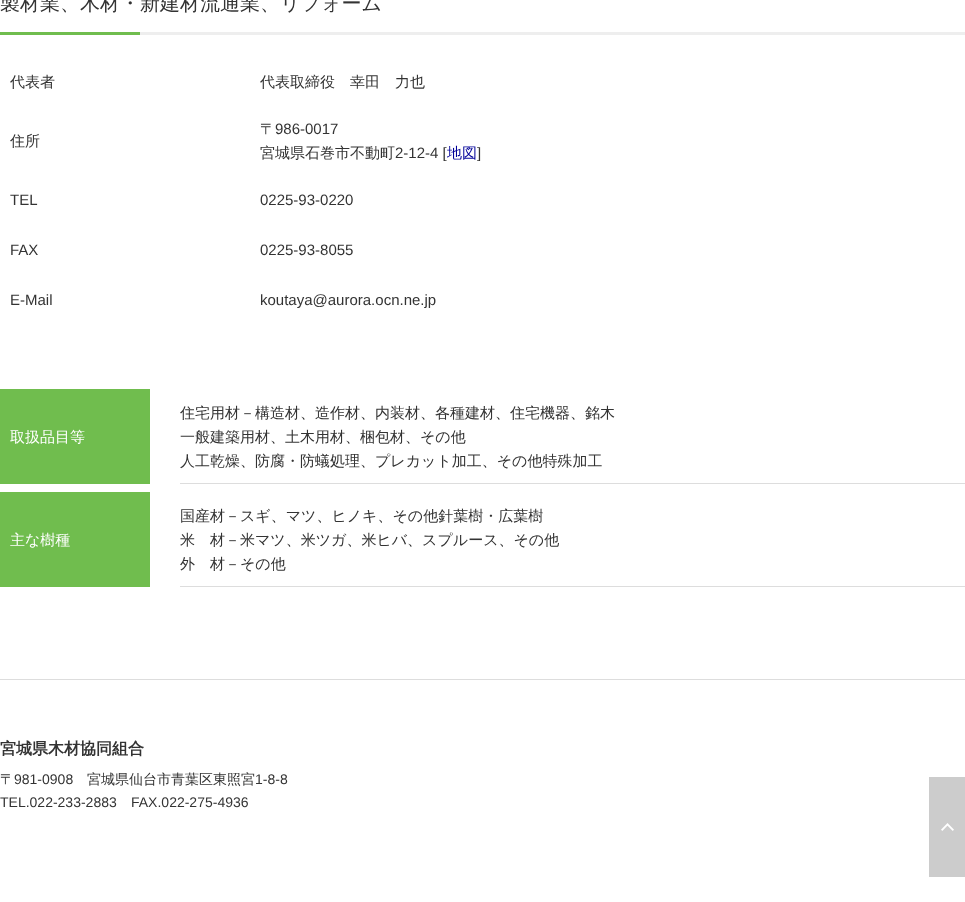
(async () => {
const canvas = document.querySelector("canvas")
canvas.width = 965
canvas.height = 902
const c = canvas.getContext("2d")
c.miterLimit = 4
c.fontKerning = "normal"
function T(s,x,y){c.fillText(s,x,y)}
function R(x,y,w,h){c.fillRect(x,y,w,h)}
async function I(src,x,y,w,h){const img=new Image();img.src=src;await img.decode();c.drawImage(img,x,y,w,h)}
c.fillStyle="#fff"
R(0,0,965,902)
c.fillStyle="#eee"
R(140,32,825,3)
c.font="500 20px WenQuanYi Zen Hei"
c.fillStyle="#333"
T("製材業、木材・新建材流通業、リフォーム",0,10)
c.fillStyle="#70bd4e"
R(0,32,140,3)
c.font="500 15px WenQuanYi Zen Hei"
c.fillStyle="#333"
T("代表者",10,87)
T("代表取締役　幸田　力也",260,87)
T("住所",10,146)
T("〒",260,134)
c.font="15px Liberation Sans"
T("986-0017",275,134)
c.font="500 15px WenQuanYi Zen Hei"
T("宮城県石巻市不動町",260,158)
c.font="15px Liberation Sans"
T("2-12-4 [",395,158)
c.font="500 15px WenQuanYi Zen Hei"
c.fillStyle="#009"
T("地図",447,158)
c.font="15px Liberation Sans"
c.fillStyle="#333"
T("]",477,158)
T("TEL",10,205)
T("0225-93-0220",260,205)
T("FAX",10,255)
T("0225-93-8055",260,255)
T("E-Mail",10,305)
T("koutaya@aurora.ocn.ne.jp",260,305)
c.fillStyle="#70bd4e"
R(0,389,150,95)
c.font="500 15px WenQuanYi Zen Hei"
c.fillStyle="#fff"
T("取扱品目等",10,442)
c.fillStyle="#ddd"
R(180,483,785,1)
c.fillStyle="#333"
T("住宅用材－構造材、造作材、内装材、各種建材、住宅機器、銘木",180,418)
T("一般建築用材、土木用材、梱包材、その他",180,442)
T("人工乾燥、防腐・防蟻処理、プレカット加工、その他特殊加工",180,466)
c.fillStyle="#70bd4e"
R(0,492,150,95)
c.fillStyle="#fff"
T("主な樹種",10,545)
c.fillStyle="#ddd"
R(180,586,785,1)
c.fillStyle="#333"
T("国産材－スギ、マツ、ヒノキ、その他針葉樹・広葉樹",180,521)
T("米　材－米マツ、米ツガ、米ヒバ、スプルース、その他",180,545)
T("外　材－その他",180,569)
c.fillStyle="#ddd"
R(0,679,965,1)
c.font="bold 16px WenQuanYi Zen Hei"
c.fillStyle="#333"
T("宮城県木材協同組合",0,754)
c.font="500 14px WenQuanYi Zen Hei"
T("〒",0,784)
c.font="14px Liberation Sans"
T("981-0908",14,784)
c.font="500 14px WenQuanYi Zen Hei"
T("宮城県仙台市青葉区東照宮",87,784)
c.font="14px Liberation Sans"
T("1-8-8",255,784)
T("TEL.022-233-2883",0,807)
T("FAX.022-275-4936",131,807)
c.fillStyle="#ccc"
R(929,777,36,100)
await I("1.png",941,823,13,8)
})()
